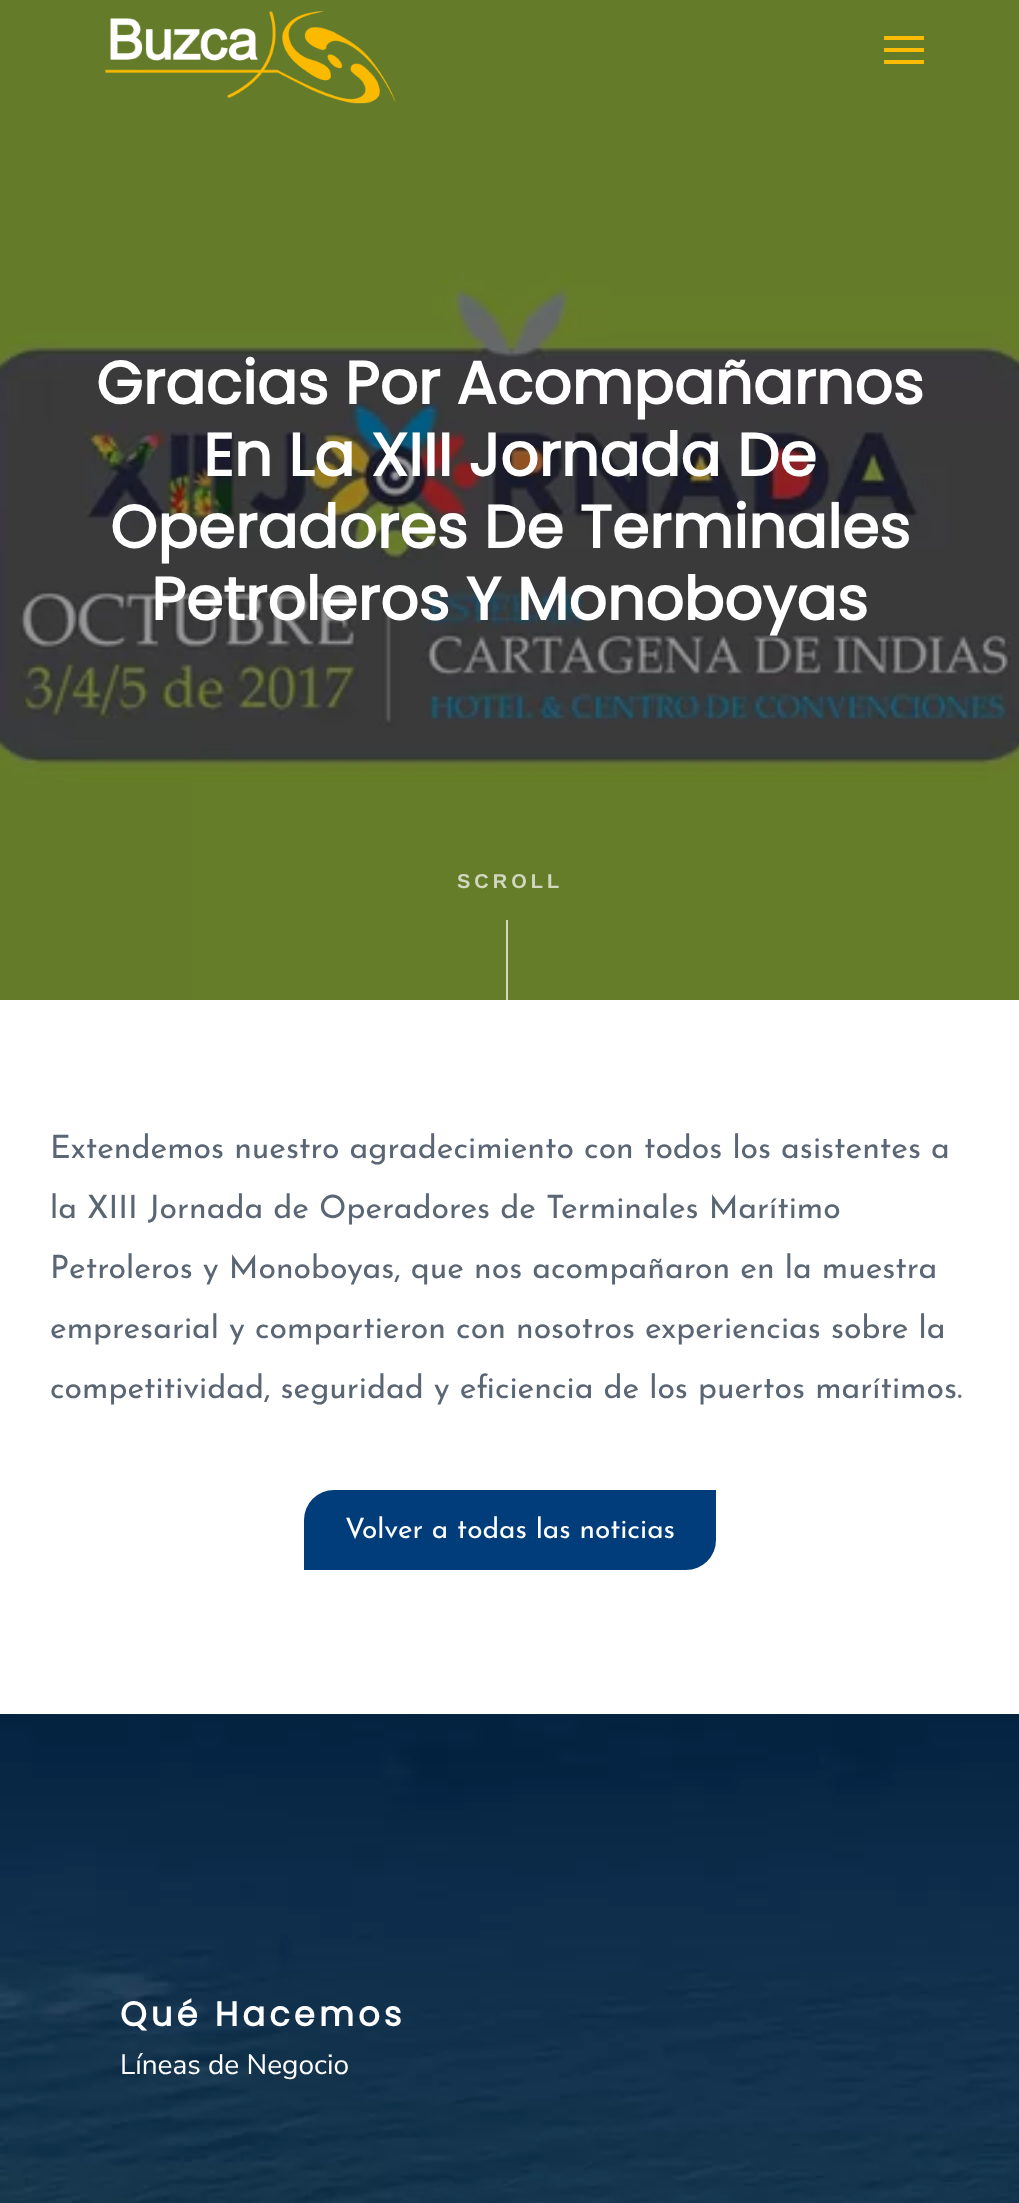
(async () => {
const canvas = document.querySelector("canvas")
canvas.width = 1019
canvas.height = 2203
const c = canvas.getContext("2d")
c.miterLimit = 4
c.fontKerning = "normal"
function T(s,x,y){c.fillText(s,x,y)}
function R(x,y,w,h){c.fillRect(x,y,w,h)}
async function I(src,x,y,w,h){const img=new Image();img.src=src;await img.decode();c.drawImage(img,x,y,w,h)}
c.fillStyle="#fff"
R(0,0,1019,2203)
await I("2.png",0,0,1019,1000)
await I("1.png",105,11,291,93)
c.fillStyle="#fbbb00"
R(884,36,40,4)
R(884,48,40,4)
R(884,60,40,4)
c.font="bold 60px Poppins"
c.fillStyle="#fff"
T("Gracias Por Acompañarnos",96,404)
T("En La XIII Jornada De",203,476)
T("Operadores De Terminales",110,548)
T("Petroleros Y Monoboyas",151,620)
c.letterSpacing="4px"
c.font="bold 20px Liberation Sans"
c.fillStyle="#d1d8bf"
T("SCROLL",457,888)
R(506,920,2,80)
c.letterSpacing="0px"
c.font="32px Josefin Sans"
c.fillStyle="#5b6674"
T("Extendemos nuestro agradecimiento con todos los asistentes a",50,1158)
T("la XIII Jornada de Operadores de Terminales Marítimo",50,1218)
T("Petroleros y Monoboyas, que nos acompañaron en la muestra",50,1278)
T("empresarial y compartieron con nosotros experiencias sobre la",50,1338)
T("competitividad, seguridad y eficiencia de los puertos marítimos.",50,1398)
c.fillStyle="#003d7a"
c.beginPath()
c.roundRect(304,1490,412,80,[30,0,30,0])
c.fill()
c.font="28px Josefin Sans"
c.fillStyle="#fff"
T("Volver a todas las noticias",345,1538)
await I("3.png",0,1714,1019,489)
c.letterSpacing="4px"
c.font="bold 34px Poppins"
T("Qué Hacemos",120,2026)
c.letterSpacing="0px"
c.font="200 28px Nunito Sans"
T("Líneas de Negocio",120,2074)
})()
